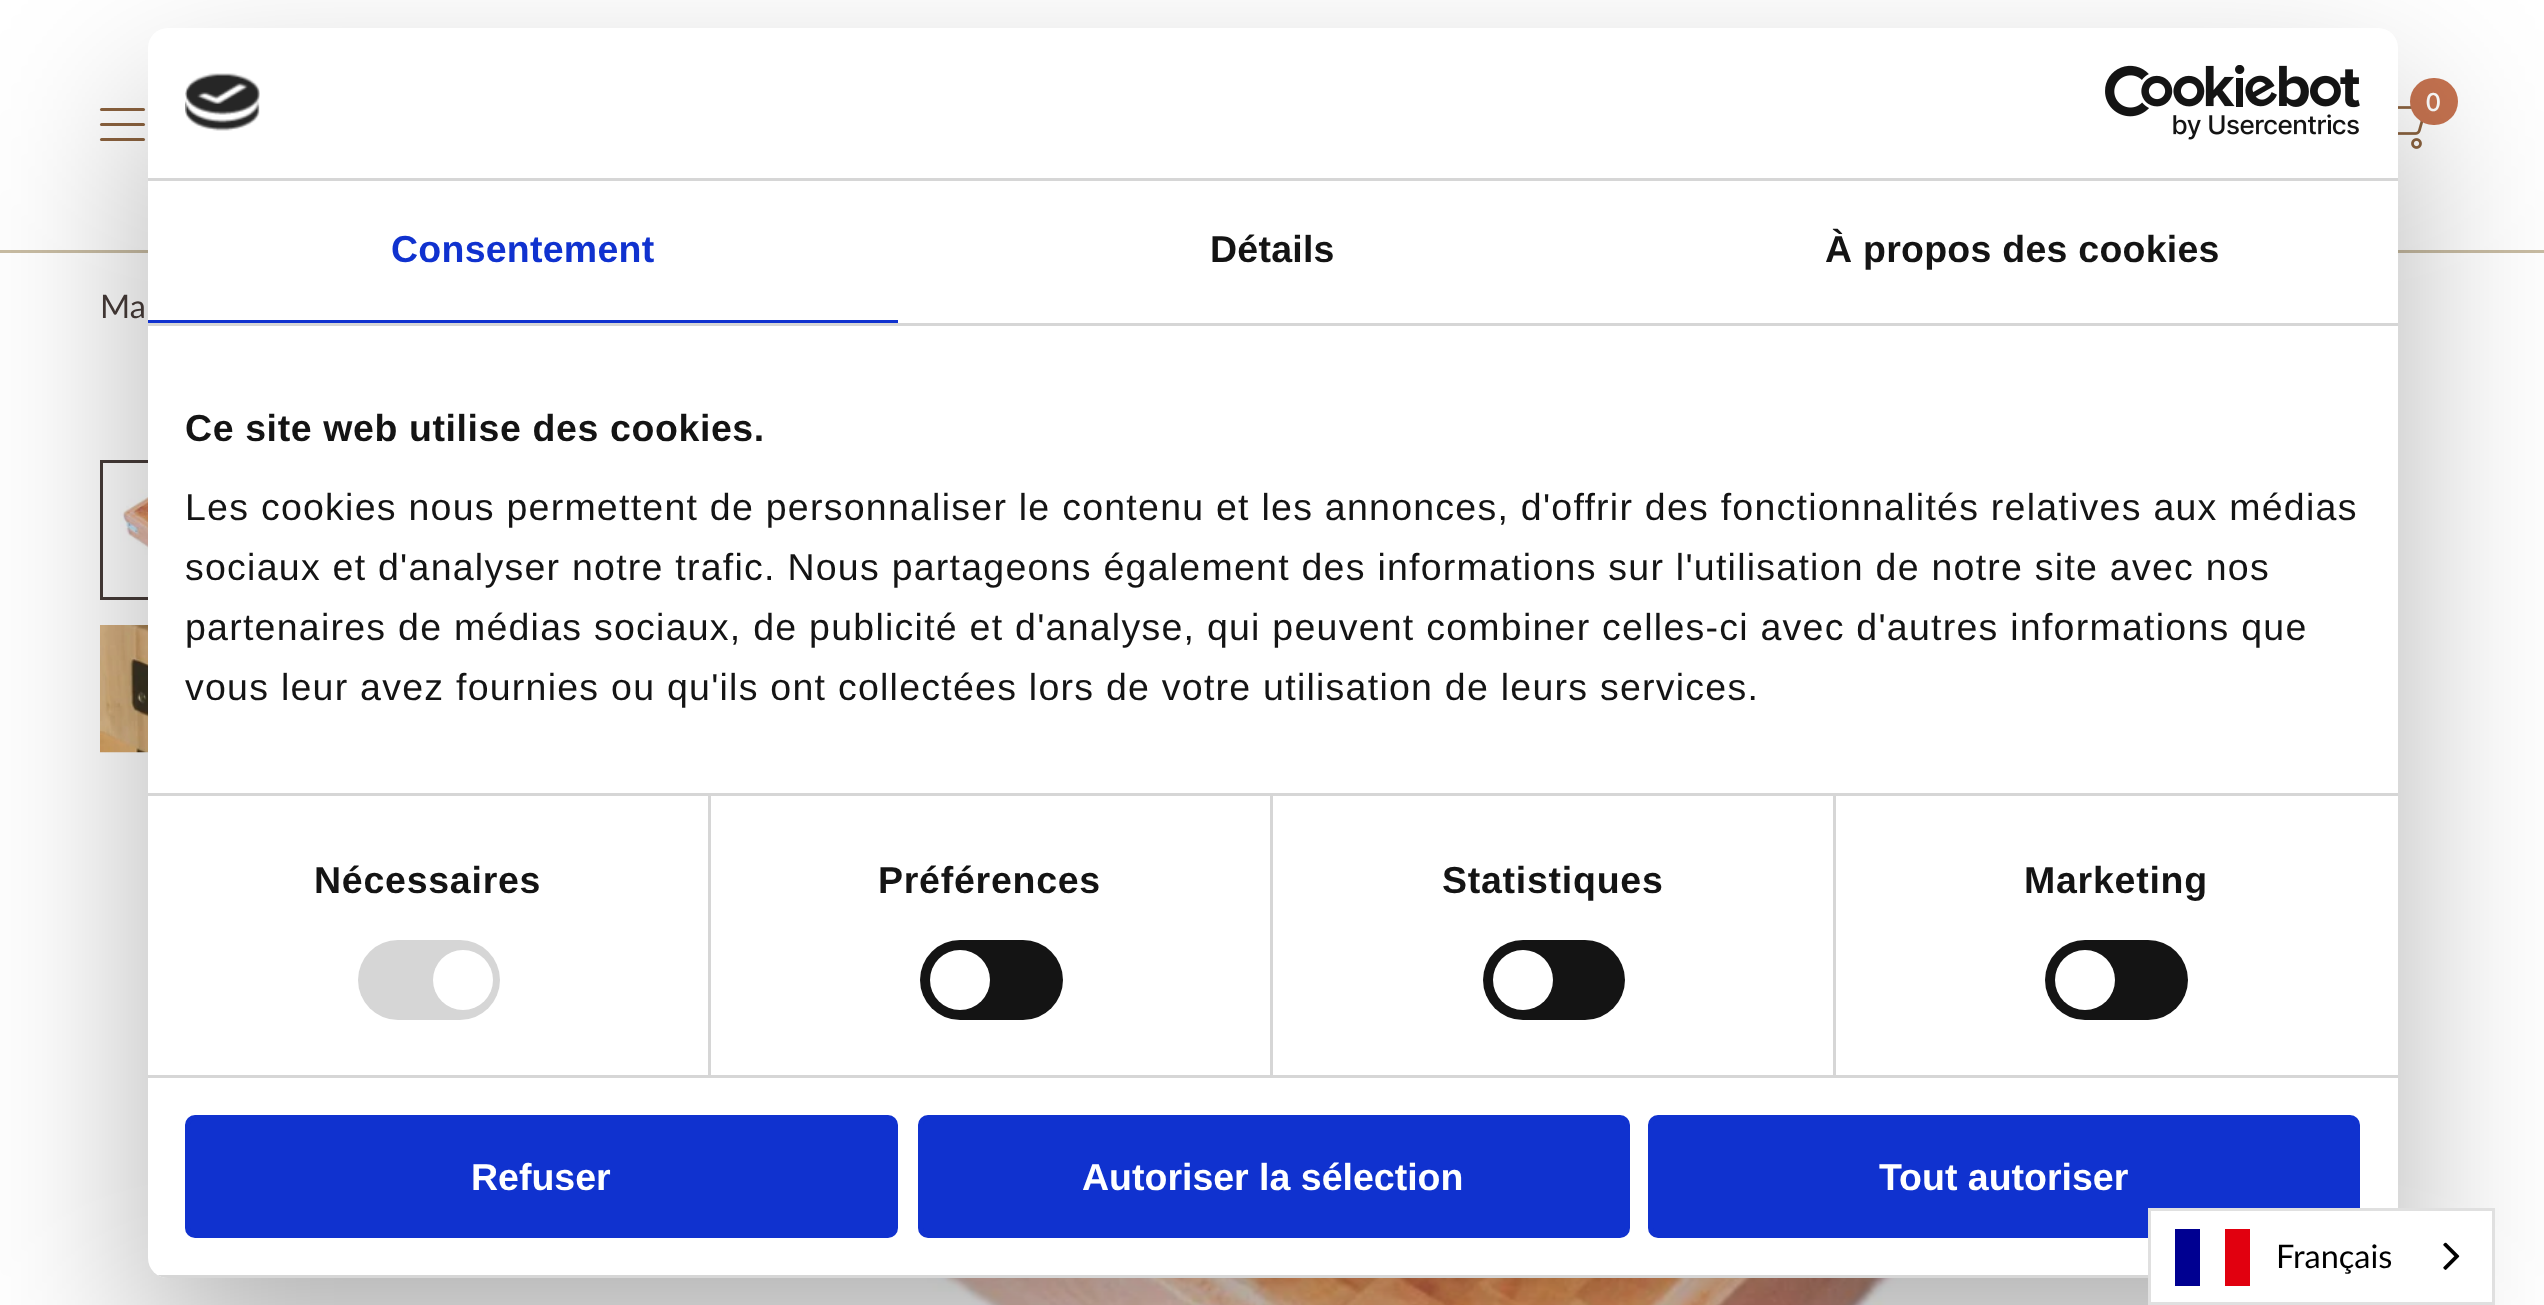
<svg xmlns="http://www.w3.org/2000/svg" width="2544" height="1305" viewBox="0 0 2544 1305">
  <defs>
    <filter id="blur1" x="-50%" y="-200%" width="200%" height="500%"><feGaussianBlur stdDeviation="85"/></filter>
    <clipPath id="clip1"><rect x="148" y="28" width="2250" height="1250" rx="20"/></clipPath>
  </defs>
  <rect width="100%" height="100%" fill="#ffffff"/>
  <rect x="0" y="250" width="2544" height="3" fill="#c8bca3"/>
  <image x="2398" y="106" width="26" height="43" href="img1.png"/>
  <rect x="2410" y="78" width="48" height="47" rx="23.5" fill="#c67350"/>
  <text x="2426" y="111" font-family="Lato" font-size="25" font-weight="600" fill="#ffffff">0</text>
  <rect x="100" y="108" width="45" height="3" rx="1.5" fill="#8b623e"/>
  <rect x="100" y="123" width="45" height="3" rx="1.5" fill="#8b623e"/>
  <rect x="100" y="138" width="45" height="3" rx="1.5" fill="#8b623e"/>
  <text x="100" y="318" font-family="Lato" font-size="32.5" fill="#463b38">Ma</text>
  <image x="120" y="463" width="28" height="134" href="img2.png"/>
  <rect x="101.5" y="461.5" width="197" height="137" fill="none" stroke="#463b38" stroke-width="3"/>
  <image x="100" y="625" width="48" height="128" href="img3.png"/>
  <image x="812" y="1278" width="1285" height="27" href="img4.png"/>
  <rect x="148" y="108" width="2250" height="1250" rx="20" fill="#000000" fill-opacity="0.3" filter="url(#blur1)"/>
  <rect x="148" y="28" width="2250" height="1250" rx="20" fill="#ffffff"/>
  <rect x="148" y="178" width="2250" height="3" fill="#d6d6d6"/>
  <image x="185" y="73" width="75" height="58" href="img5.png"/>
  <image x="2105" y="65" width="255" height="75" href="img6.png"/>
  <rect x="148" y="323" width="2250" height="3" fill="#d6d6d6"/>
  <rect x="148" y="320" width="750" height="3" fill="#1032cf"/>
  <text x="391" y="262" font-family="Liberation Sans" font-size="37.5" font-weight="bold" letter-spacing="0.25" fill="#1032cf">Consentement</text>
  <text x="1210" y="262" font-family="Liberation Sans" font-size="37.5" font-weight="bold" letter-spacing="0.25" fill="#141414">Détails</text>
  <text x="1825" y="262" font-family="Liberation Sans" font-size="37.5" font-weight="bold" letter-spacing="0.25" fill="#141414">À propos des cookies</text>
  <rect x="708" y="795" width="3" height="280" fill="#d6d6d6"/>
  <rect x="1270" y="795" width="3" height="280" fill="#d6d6d6"/>
  <rect x="1833" y="795" width="3" height="280" fill="#d6d6d6"/>
  <rect x="148" y="793" width="2250" height="3" fill="#d6d6d6"/>
  <text x="185" y="441" font-family="Liberation Sans" font-size="37.5" font-weight="bold" letter-spacing="0.6" fill="#141414">Ce site web utilise des cookies.</text>
  <text x="185" y="520" font-family="Liberation Sans" font-size="37.5" letter-spacing="1.25" fill="#141414">Les cookies nous permettent de personnaliser le contenu et les annonces, d'offrir des fonctionnalités relatives aux médias</text>
  <text x="185" y="580" font-family="Liberation Sans" font-size="37.5" letter-spacing="1.25" fill="#141414">sociaux et d'analyser notre trafic. Nous partageons également des informations sur l'utilisation de notre site avec nos</text>
  <text x="185" y="640" font-family="Liberation Sans" font-size="37.5" letter-spacing="1.25" fill="#141414">partenaires de médias sociaux, de publicité et d'analyse, qui peuvent combiner celles-ci avec d'autres informations que</text>
  <text x="185" y="700" font-family="Liberation Sans" font-size="37.5" letter-spacing="1.25" fill="#141414">vous leur avez fournies ou qu'ils ont collectées lors de votre utilisation de leurs services.</text>
  <rect x="148" y="1075" width="2250" height="3" fill="#d6d6d6"/>
  <text x="314" y="893" font-family="Liberation Sans" font-size="37.5" font-weight="bold" letter-spacing="0.75" fill="#141414">Nécessaires</text>
  <rect x="358" y="940" width="142" height="80" rx="40" fill="#d6d6d6"/>
  <circle cx="463" cy="980" r="30" fill="#ffffff"/>
  <text x="878" y="893" font-family="Liberation Sans" font-size="37.5" font-weight="bold" letter-spacing="0.75" fill="#141414">Préférences</text>
  <rect x="920" y="940" width="143" height="80" rx="40" fill="#141414"/>
  <circle cx="960" cy="980" r="30" fill="#ffffff"/>
  <text x="1442" y="893" font-family="Liberation Sans" font-size="37.5" font-weight="bold" letter-spacing="0.75" fill="#141414">Statistiques</text>
  <rect x="1483" y="940" width="142" height="80" rx="40" fill="#141414"/>
  <circle cx="1523" cy="980" r="30" fill="#ffffff"/>
  <text x="2024" y="893" font-family="Liberation Sans" font-size="37.5" font-weight="bold" letter-spacing="0.75" fill="#141414">Marketing</text>
  <rect x="2045" y="940" width="143" height="80" rx="40" fill="#141414"/>
  <circle cx="2085" cy="980" r="30" fill="#ffffff"/>
  <g clip-path="url(#clip1)">
    <rect x="157" y="1275" width="1991" height="3" fill="#d6d6d6"/>
  </g>
  <rect x="187.5" y="1117.5" width="708" height="118" rx="7.5" fill="#1032cf" stroke="#1032cf" stroke-width="5"/>
  <text x="471" y="1190" font-family="Liberation Sans" font-size="37.5" font-weight="bold" fill="#ffffff">Refuser</text>
  <rect x="920.5" y="1117.5" width="707" height="118" rx="7.5" fill="#1032cf" stroke="#1032cf" stroke-width="5"/>
  <text x="1082" y="1190" font-family="Liberation Sans" font-size="37.5" font-weight="bold" fill="#ffffff">Autoriser la sélection</text>
  <rect x="1650.5" y="1117.5" width="707" height="118" rx="7.5" fill="#1032cf" stroke="#1032cf" stroke-width="5"/>
  <text x="1879" y="1190" font-family="Liberation Sans" font-size="37.5" font-weight="bold" fill="#ffffff">Tout autoriser</text>
  <rect x="2149.5" y="1209.5" width="344" height="94" fill="#ffffff" stroke="#e0e0e0" stroke-width="3"/>
  <rect x="2175" y="1229" width="25" height="57" fill="#000091"/>
  <rect x="2225" y="1229" width="25" height="57" fill="#e1000f"/>
  <text x="2276" y="1268" font-family="Lato" font-size="32.5" fill="#000000">Français</text>
  <image x="2443" y="1242" width="17" height="28" href="img7.png"/>
</svg>
